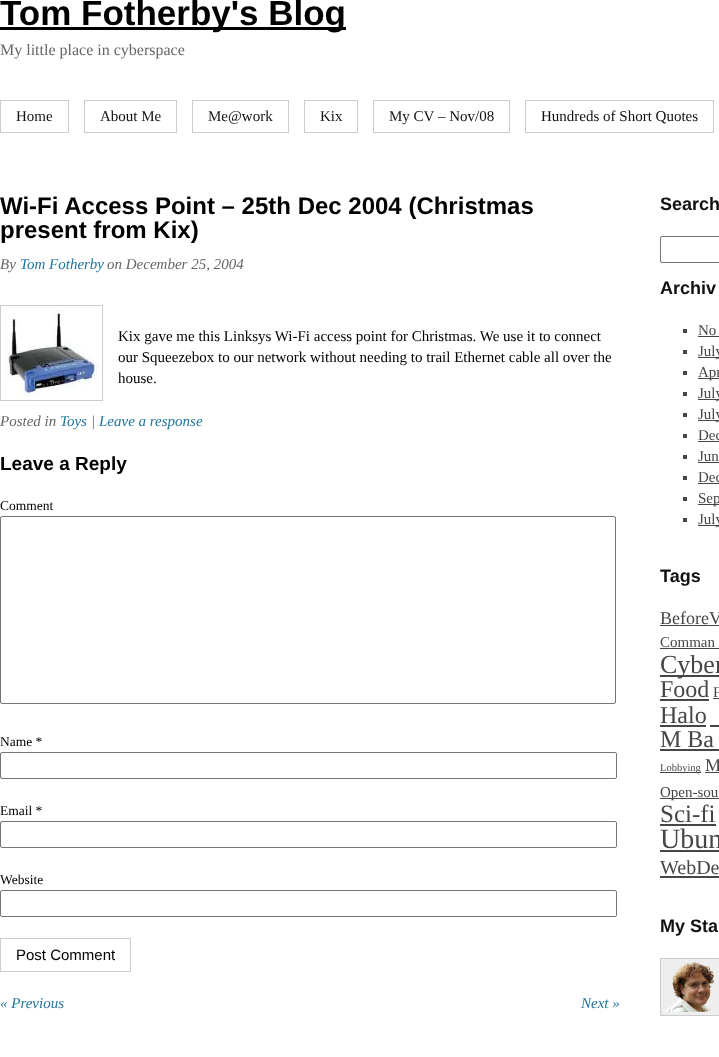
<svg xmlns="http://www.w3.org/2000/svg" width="719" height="1057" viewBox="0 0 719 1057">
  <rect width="100%" height="100%" fill="#ffffff"/>
  <rect x="0" y="27" width="346" height="3" fill="#000000"/>
  <text x="0" y="25" font-family="Liberation Sans" font-size="35" font-weight="bold" fill="#000000">Tom Fotherby's Blog</text>
  <text x="0" y="55" font-family="Liberation Serif" font-size="16" fill="#666666">My little place in cyberspace</text>
  <rect x="0.5" y="100.5" width="68" height="32" fill="none" stroke="#cccccc"/>
  <text x="16" y="121" font-family="Liberation Serif" font-size="15" fill="#111111">Home</text>
  <rect x="84.5" y="100.5" width="92" height="32" fill="none" stroke="#cccccc"/>
  <text x="100" y="121" font-family="Liberation Serif" font-size="15" fill="#111111">About Me</text>
  <rect x="192.5" y="100.5" width="96" height="32" fill="none" stroke="#cccccc"/>
  <text x="208" y="121" font-family="Liberation Serif" font-size="15" fill="#111111">Me@work</text>
  <rect x="304.5" y="100.5" width="53" height="32" fill="none" stroke="#cccccc"/>
  <text x="320" y="121" font-family="Liberation Serif" font-size="15" fill="#111111">Kix</text>
  <rect x="373.5" y="100.5" width="136" height="32" fill="none" stroke="#cccccc"/>
  <text x="389" y="121" font-family="Liberation Serif" font-size="15" fill="#111111">My CV – Nov/08</text>
  <rect x="525.5" y="100.5" width="188" height="32" fill="none" stroke="#cccccc"/>
  <text x="541" y="121" font-family="Liberation Serif" font-size="15" fill="#111111">Hundreds of Short Quotes</text>
  <text x="0" y="214" font-family="Liberation Sans" font-size="24" font-weight="bold" fill="#000000">Wi-Fi Access Point – 25th Dec 2004 (Christmas</text>
  <text x="0" y="238" font-family="Liberation Sans" font-size="24" font-weight="bold" fill="#000000">present from Kix)</text>
  <text x="0" y="269" font-family="Liberation Serif" font-size="15" font-style="italic" fill="#666666">By</text>
  <text x="20" y="269" font-family="Liberation Serif" font-size="15" font-style="italic" fill="#21759b">Tom Fotherby</text>
  <text x="107" y="269" font-family="Liberation Serif" font-size="15" font-style="italic" fill="#666666">on December 25, 2004</text>
  <rect x="0.5" y="305.5" width="102" height="95" fill="none" stroke="#cccccc"/>
  <image x="5" y="310" width="93" height="86" href="img1.png"/>
  <text x="118" y="341" font-family="Liberation Serif" font-size="15" fill="#000000">Kix gave me this Linksys Wi-Fi access point for Christmas. We use it to connect</text>
  <text x="118" y="362" font-family="Liberation Serif" font-size="15" fill="#000000">our Squeezebox to our network without needing to trail Ethernet cable all over the</text>
  <text x="118" y="383" font-family="Liberation Serif" font-size="15" fill="#000000">house.</text>
  <text x="0" y="426" font-family="Liberation Serif" font-size="15" font-style="italic" fill="#666666">Posted in</text>
  <text x="60" y="426" font-family="Liberation Serif" font-size="15" font-style="italic" fill="#21759b">Toys</text>
  <text x="91" y="426" font-family="Liberation Serif" font-size="15" font-style="italic" fill="#666666">|</text>
  <text x="99" y="426" font-family="Liberation Serif" font-size="15" font-style="italic" fill="#21759b">Leave a response</text>
  <text x="0" y="470" font-family="Liberation Sans" font-size="19" font-weight="bold" fill="#000000">Leave a Reply</text>
  <text x="0" y="510" font-family="Liberation Serif" font-size="13.5" fill="#000000">Comment</text>
  <rect x="0.5" y="516.5" width="615" height="187" rx="1.5" fill="none" stroke="#767676"/>
  <text x="0" y="746" font-family="Liberation Serif" font-size="13.5" fill="#000000">Name *</text>
  <rect x="0.5" y="752.5" width="616" height="26" rx="1.5" fill="none" stroke="#767676"/>
  <text x="0" y="815" font-family="Liberation Serif" font-size="13.5" fill="#000000">Email *</text>
  <rect x="0.5" y="821.5" width="616" height="26" rx="1.5" fill="none" stroke="#767676"/>
  <text x="0" y="884" font-family="Liberation Serif" font-size="13.5" fill="#000000">Website</text>
  <rect x="0.5" y="890.5" width="616" height="26" rx="1.5" fill="none" stroke="#767676"/>
  <rect x="0.5" y="938.5" width="130" height="33" fill="none" stroke="#cccccc"/>
  <text x="16" y="960" font-family="Liberation Sans" font-size="15" fill="#000000">Post Comment</text>
  <text x="0" y="1008" font-family="Liberation Serif" font-size="15" font-style="italic" fill="#21759b">« Previous</text>
  <text x="581" y="1008" font-family="Liberation Serif" font-size="15" font-style="italic" fill="#21759b">Next »</text>
  <text x="660" y="210" font-family="Liberation Sans" font-size="18" font-weight="bold" fill="#111111">Search</text>
  <rect x="660.5" y="236.5" width="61" height="26" rx="1.5" fill="none" stroke="#767676"/>
  <text x="660" y="294" font-family="Liberation Sans" font-size="18" font-weight="bold" fill="#111111">Archiv</text>
  <rect x="683" y="329" width="4" height="4" fill="#464646"/>
  <text x="698" y="335" font-family="Liberation Serif" font-size="15" fill="#464646">No</text>
  <rect x="698" y="336" width="21" height="1" fill="#464646"/>
  <rect x="683" y="350" width="4" height="4" fill="#464646"/>
  <rect x="698" y="357" width="21" height="1" fill="#464646"/>
  <text x="698" y="356" font-family="Liberation Serif" font-size="15" fill="#464646">July</text>
  <rect x="683" y="371" width="4" height="4" fill="#464646"/>
  <rect x="698" y="378" width="21" height="1" fill="#464646"/>
  <text x="698" y="377" font-family="Liberation Serif" font-size="15" fill="#464646">Apr</text>
  <rect x="683" y="392" width="4" height="4" fill="#464646"/>
  <rect x="698" y="399" width="21" height="1" fill="#464646"/>
  <text x="698" y="398" font-family="Liberation Serif" font-size="15" fill="#464646">July</text>
  <rect x="683" y="413" width="4" height="4" fill="#464646"/>
  <rect x="698" y="420" width="21" height="1" fill="#464646"/>
  <text x="698" y="419" font-family="Liberation Serif" font-size="15" fill="#464646">July</text>
  <rect x="683" y="434" width="4" height="4" fill="#464646"/>
  <text x="698" y="440" font-family="Liberation Serif" font-size="15" fill="#464646">Dec</text>
  <rect x="698" y="441" width="21" height="1" fill="#464646"/>
  <rect x="683" y="455" width="4" height="4" fill="#464646"/>
  <text x="698" y="461" font-family="Liberation Serif" font-size="15" fill="#464646">Jun</text>
  <rect x="698" y="462" width="21" height="1" fill="#464646"/>
  <rect x="683" y="476" width="4" height="4" fill="#464646"/>
  <text x="698" y="482" font-family="Liberation Serif" font-size="15" fill="#464646">Dec</text>
  <rect x="698" y="483" width="21" height="1" fill="#464646"/>
  <rect x="683" y="497" width="4" height="4" fill="#464646"/>
  <rect x="698" y="504" width="21" height="1" fill="#464646"/>
  <text x="698" y="503" font-family="Liberation Serif" font-size="15" fill="#464646">Sep</text>
  <rect x="683" y="518" width="4" height="4" fill="#464646"/>
  <rect x="698" y="525" width="21" height="1" fill="#464646"/>
  <text x="698" y="524" font-family="Liberation Serif" font-size="15" fill="#464646">July</text>
  <text x="660" y="582" font-family="Liberation Sans" font-size="18" font-weight="bold" fill="#111111">Tags</text>
  <text x="660" y="624" font-family="Liberation Serif" font-size="18" fill="#464646">BeforeV</text>
  <rect x="660" y="625" width="59" height="1" fill="#464646"/>
  <text x="660" y="647" font-family="Liberation Serif" font-size="15" fill="#464646">Comman</text>
  <rect x="660" y="648" width="59" height="1" fill="#464646"/>
  <rect x="660" y="675" width="59" height="2" fill="#464646"/>
  <text x="660" y="673" font-family="Liberation Serif" font-size="26" fill="#464646">Cyber</text>
  <text x="660" y="697" font-family="Liberation Serif" font-size="24" fill="#464646">Food</text>
  <rect x="660" y="699" width="49" height="2" fill="#464646"/>
  <text x="713" y="697" font-family="Liberation Serif" font-size="15" fill="#464646">F</text>
  <rect x="713" y="698" width="6" height="1" fill="#464646"/>
  <text x="660" y="723" font-family="Liberation Serif" font-size="24" fill="#464646">Halo</text>
  <rect x="660" y="725" width="46" height="2" fill="#464646"/>
  <rect x="710" y="725" width="9" height="2" fill="#464646"/>
  <text x="660" y="747" font-family="Liberation Serif" font-size="24" fill="#464646">M Ba</text>
  <rect x="660" y="749" width="59" height="2" fill="#464646"/>
  <rect x="660" y="772" width="41" height="1" fill="#464646"/>
  <text x="660" y="771" font-family="Liberation Serif" font-size="10.5" fill="#464646">Lobbying</text>
  <text x="705" y="771" font-family="Liberation Serif" font-size="18" fill="#464646">M</text>
  <rect x="705" y="772" width="14" height="1" fill="#464646"/>
  <rect x="660" y="798" width="59" height="1" fill="#464646"/>
  <text x="660" y="797" font-family="Liberation Serif" font-size="15" fill="#464646">Open-sou</text>
  <text x="660" y="822" font-family="Liberation Serif" font-size="25" fill="#464646">Sci-fi</text>
  <rect x="660" y="824" width="56" height="2" fill="#464646"/>
  <text x="660" y="848" font-family="Liberation Serif" font-size="28" fill="#464646">Ubun</text>
  <rect x="660" y="850" width="59" height="2" fill="#464646"/>
  <text x="660" y="874" font-family="Liberation Serif" font-size="20" fill="#464646">WebDe</text>
  <rect x="660" y="876" width="59" height="2" fill="#464646"/>
  <text x="660" y="932" font-family="Liberation Sans" font-size="18" font-weight="bold" fill="#111111">My Sta</text>
  <image x="660" y="958" width="59" height="58" href="img2.png"/>
</svg>
